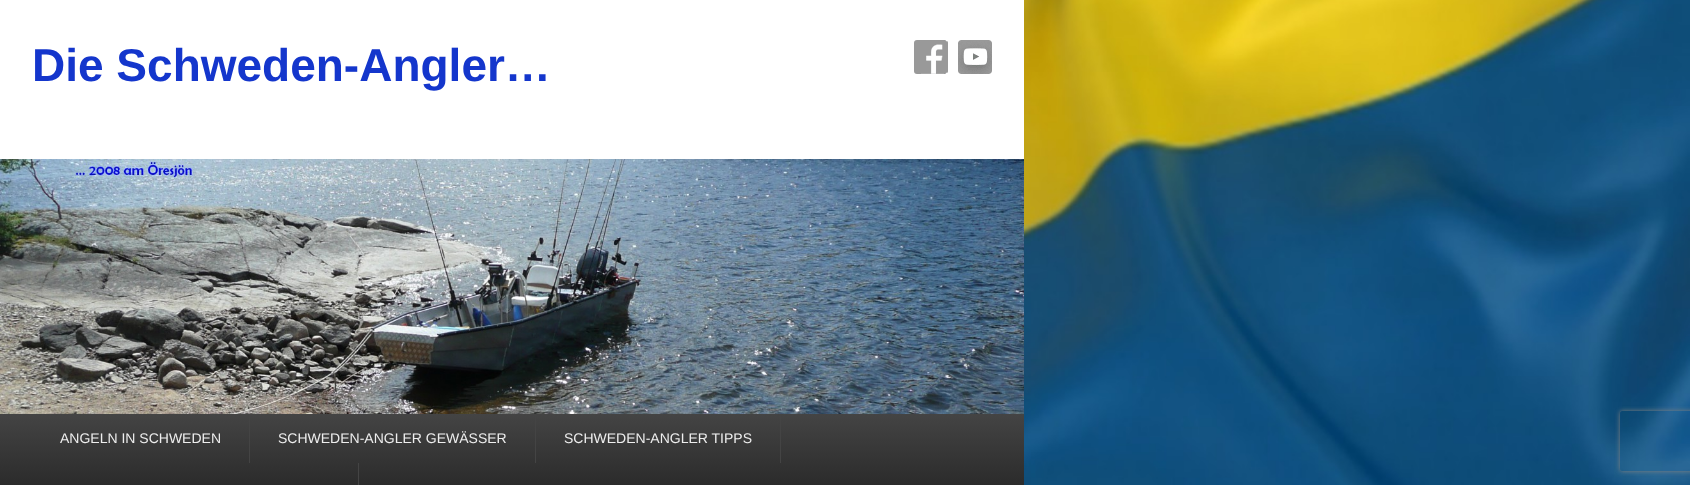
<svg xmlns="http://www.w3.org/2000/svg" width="1690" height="485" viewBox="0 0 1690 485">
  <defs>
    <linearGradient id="g1" gradientUnits="userSpaceOnUse" x1="512" y1="414" x2="512" y2="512"><stop offset="0" stop-color="#444444"/><stop offset="1" stop-color="#222222"/></linearGradient>
    <clipPath id="clip1"><path d="M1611 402H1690V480H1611ZM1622 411H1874C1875 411 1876 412 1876 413V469C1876 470 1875 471 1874 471H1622C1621 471 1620 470 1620 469V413C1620 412 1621 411 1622 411Z" clip-rule="evenodd"/></clipPath>
    <filter id="blur1" x="-50%" y="-200%" width="200%" height="500%"><feGaussianBlur stdDeviation="2.5"/></filter>
  </defs>
  <rect width="100%" height="100%" fill="#ffffff"/>
  <image x="1024" y="0" width="666" height="485" href="img1.png"/>
  <text x="32" y="81" font-family="Liberation Sans" font-size="46" font-weight="bold" fill="#1436cc">Die Schweden-Angler…</text>
  <image x="914" y="40" width="34" height="34" href="img2.png"/>
  <image x="958" y="40" width="34" height="34" href="img3.png"/>
  <image x="0" y="159" width="1024" height="255" href="img4.png"/>
  <rect x="0" y="414" width="1024" height="71" fill="url(#g1)"/>
  <rect x="249" y="414" width="1" height="49" fill="#444444"/>
  <text x="60" y="443" font-family="Liberation Sans" font-size="14" fill="#eeeeee">ANGELN IN SCHWEDEN</text>
  <rect x="535" y="414" width="1" height="49" fill="#444444"/>
  <text x="278" y="443" font-family="Liberation Sans" font-size="14" fill="#eeeeee">SCHWEDEN-ANGLER GEWÄSSER</text>
  <rect x="780" y="414" width="1" height="49" fill="#444444"/>
  <text x="564" y="443" font-family="Liberation Sans" font-size="14" fill="#eeeeee">SCHWEDEN-ANGLER TIPPS</text>
  <rect x="358" y="463" width="1" height="22" fill="#444444"/>
  <g clip-path="url(#clip1)">
    <rect x="1620" y="411" width="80" height="60" rx="2" fill="#808080" filter="url(#blur1)"/>
  </g>
</svg>
